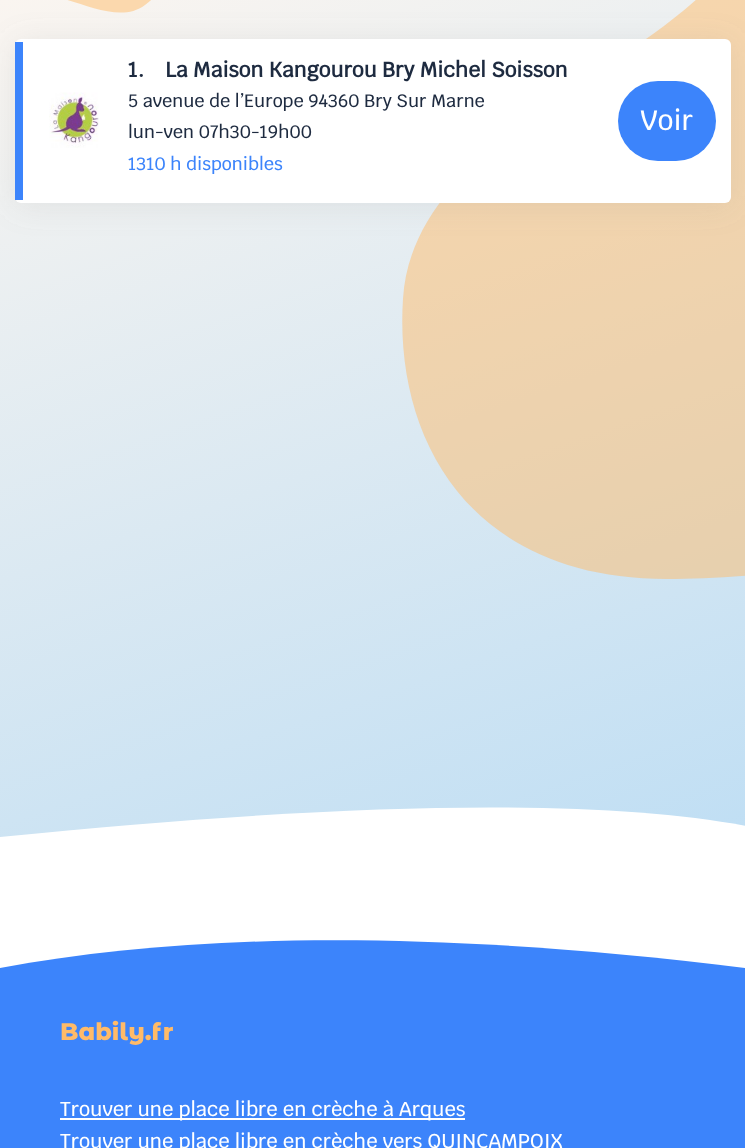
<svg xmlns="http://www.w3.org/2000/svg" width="745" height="1148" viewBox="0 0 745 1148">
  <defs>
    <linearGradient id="g1" gradientUnits="userSpaceOnUse" x1="156" y1="-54" x2="589" y2="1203"><stop offset="0" stop-color="#faf5f0"/><stop offset="1" stop-color="#afd8f5"/></linearGradient>
    <filter id="blur1" x="-50%" y="-200%" width="200%" height="500%"><feGaussianBlur stdDeviation="15"/></filter>
    <clipPath id="clip1"><rect x="0" y="785" width="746" height="52"/></clipPath>
  </defs>
  <rect width="100%" height="100%" fill="#ffffff"/>
  <rect x="0" y="0" width="745" height="837" fill="url(#g1)"/>
  <path d="M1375 268C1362 495 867 579 667 579C468 579 394 437 403 299C411 162 585 92 683 11C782-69 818-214 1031-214C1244-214 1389 41 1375 268Z" fill="#ffbb69" fill-opacity="0.5"/>
  <path d="M-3-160C40-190 126-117 155-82C185-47 171-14 145 5C120 24 83 2 55-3C26-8-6 8-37-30C-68-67-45-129-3-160Z" fill="#fbd8ad"/>
  <rect x="15" y="42" width="716" height="164" rx="6" fill="#8c8c8c" fill-opacity="0.15" filter="url(#blur1)"/>
  <rect x="15" y="39" width="716" height="164" rx="6" fill="#ffffff"/>
  <rect x="15" y="42" width="8" height="158" fill="#3c84fb"/>
  <image x="49" y="92" width="50" height="56" href="img1.png"/>
  <text x="128" y="77" font-family="Krub" font-size="21" font-weight="bold" fill="#1e2b40">1. La Maison Kangourou Bry Michel Soisson</text>
  <text x="128" y="107" font-family="Krub" font-size="18" font-weight="500" fill="#1e2b40">5 avenue de l’Europe 94360 Bry Sur Marne</text>
  <text x="128" y="138" font-family="Krub" font-size="18" font-weight="500" fill="#1e2b40">lun-ven 07h30-19h00</text>
  <text x="128" y="170" font-family="Krub" font-size="18" font-weight="500" fill="#3c84fb">1310 h disponibles</text>
  <rect x="618" y="81" width="98" height="80" rx="40" fill="#3c84fb"/>
  <text x="640" y="130" font-family="Krub" font-size="28" font-weight="500" fill="#ffffff">Voir</text>
  <g clip-path="url(#clip1)">
    <path d="M0 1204V837C348 802 596 798 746 826V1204Z" fill="#ffffff"/>
  </g>
  <path d="M0 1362V968C199 931 447 931 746 968V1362Z" fill="#3c84fb"/>
  <text x="60" y="1040" font-family="Montserrat Alternates" font-size="24" font-weight="800" fill="#ffbb69">Babily.fr</text>
  <rect x="60" y="1118" width="405" height="2" fill="#ffffff"/>
  <text x="60" y="1116" font-family="Krub" font-size="20" font-weight="500" fill="#ffffff">Trouver une place libre en crèche à Arques</text>
  <text x="60" y="1148" font-family="Krub" font-size="20" font-weight="500" fill="#ffffff">Trouver une place libre en crèche vers QUINCAMPOIX</text>
</svg>
